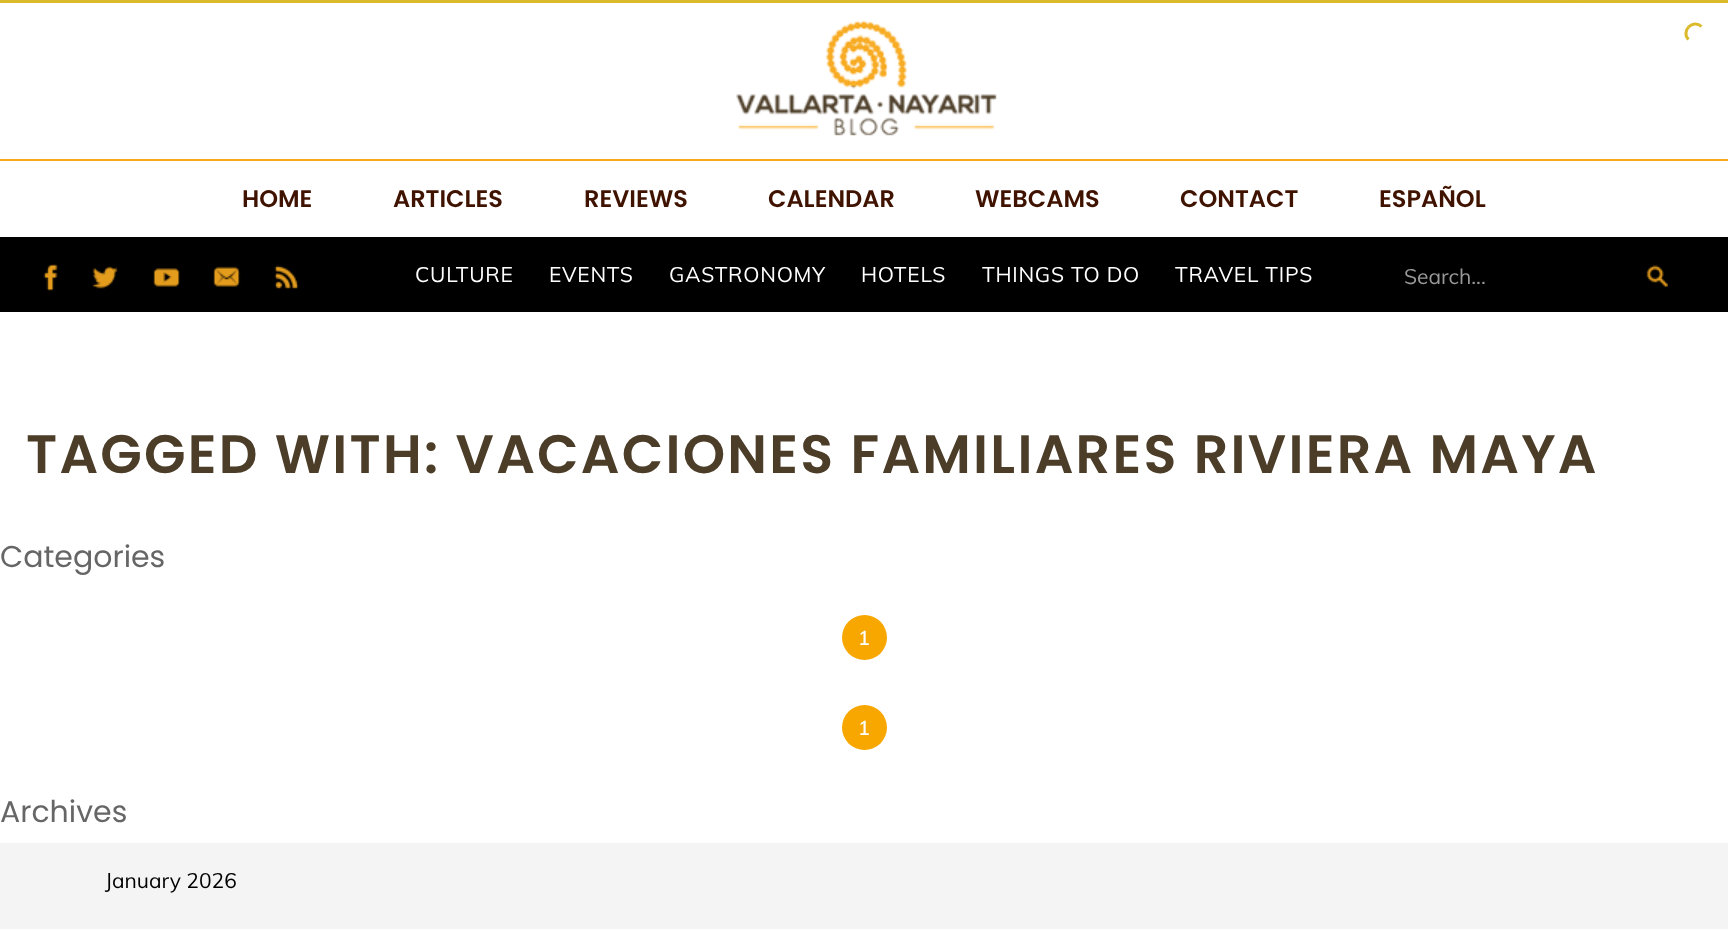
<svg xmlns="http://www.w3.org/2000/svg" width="1728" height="929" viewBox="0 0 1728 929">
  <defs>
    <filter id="blur1" x="-50%" y="-200%" width="200%" height="500%"><feGaussianBlur stdDeviation="7.5"/></filter>
  </defs>
  <rect width="100%" height="100%" fill="#ffffff"/>
  <rect x="0" y="0" width="1728" height="3" fill="#dbba2b"/>
  <rect x="1578" y="-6" width="150" height="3" fill="#dbba2b" filter="url(#blur1)"/>
  <path d="M1688.5 39.5C1680.5 31 1693 18.5 1701.5 26.5" fill="none" stroke="#dbba2b" stroke-width="3"/>
  <image x="736" y="20" width="261" height="116" href="img1.png"/>
  <rect x="0" y="159" width="1728" height="2" fill="#f8a81b"/>
  <text x="242" y="207" font-family="Poppins" font-size="24" font-weight="600" fill="#3f1300">HOME</text>
  <text x="393" y="207" font-family="Poppins" font-size="24" font-weight="600" fill="#3f1300">ARTICLES</text>
  <text x="584" y="207" font-family="Poppins" font-size="24" font-weight="600" fill="#3f1300">REVIEWS</text>
  <text x="768" y="207" font-family="Poppins" font-size="24" font-weight="600" fill="#3f1300">CALENDAR</text>
  <text x="975" y="207" font-family="Poppins" font-size="24" font-weight="600" fill="#3f1300">WEBCAMS</text>
  <text x="1180" y="207" font-family="Poppins" font-size="24" font-weight="600" fill="#3f1300">CONTACT</text>
  <text x="1379" y="207" font-family="Poppins" font-size="24" font-weight="600" fill="#3f1300">ESPAÑOL</text>
  <rect x="0" y="237" width="1728" height="75" fill="#000000"/>
  <image x="43" y="264" width="15" height="28" href="img2.png"/>
  <image x="92" y="266" width="26" height="23" href="img3.png"/>
  <image x="153" y="268" width="28" height="19" href="img4.png"/>
  <image x="213" y="266" width="28" height="21" href="img5.png"/>
  <image x="274" y="265" width="25" height="24" href="img6.png"/>
  <text x="415" y="282" font-family="Muli" font-size="21" letter-spacing="0.75" fill="#ffffff">CULTURE</text>
  <text x="549" y="282" font-family="Muli" font-size="21" letter-spacing="0.75" fill="#ffffff">EVENTS</text>
  <text x="669" y="282" font-family="Muli" font-size="21" letter-spacing="0.75" fill="#ffffff">GASTRONOMY</text>
  <text x="861" y="282" font-family="Muli" font-size="21" letter-spacing="0.75" fill="#ffffff">HOTELS</text>
  <text x="982" y="282" font-family="Muli" font-size="21" letter-spacing="0.75" fill="#ffffff">THINGS TO DO</text>
  <text x="1175" y="282" font-family="Muli" font-size="21" letter-spacing="0.75" fill="#ffffff">TRAVEL TIPS</text>
  <text x="1404" y="284" font-family="Muli" font-size="21" fill="#999999">Search...</text>
  <image x="1646" y="265" width="22" height="23" href="img7.png"/>
  <text x="26" y="473" font-family="Poppins" font-size="54" font-weight="600" letter-spacing="2.25" fill="#4c3d29">TAGGED WITH: VACACIONES FAMILIARES RIVIERA MAYA</text>
  <text x="0" y="567" font-family="Poppins" font-size="30" fill="#666666">Categories</text>
  <circle cx="864.5" cy="637.5" r="22.5" fill="#f7a700"/>
  <text x="858" y="645" font-family="Muli" font-size="20" font-weight="600" fill="#ffffff">1</text>
  <circle cx="864.5" cy="727.5" r="22.5" fill="#f7a700"/>
  <text x="858" y="735" font-family="Muli" font-size="20" font-weight="600" fill="#ffffff">1</text>
  <text x="0" y="822" font-family="Poppins" font-size="30" fill="#666666">Archives</text>
  <rect x="0" y="843" width="1728" height="86" fill="#f4f4f4"/>
  <text x="105" y="888" font-family="Muli" font-size="21" fill="#000000">January 2026</text>
</svg>
